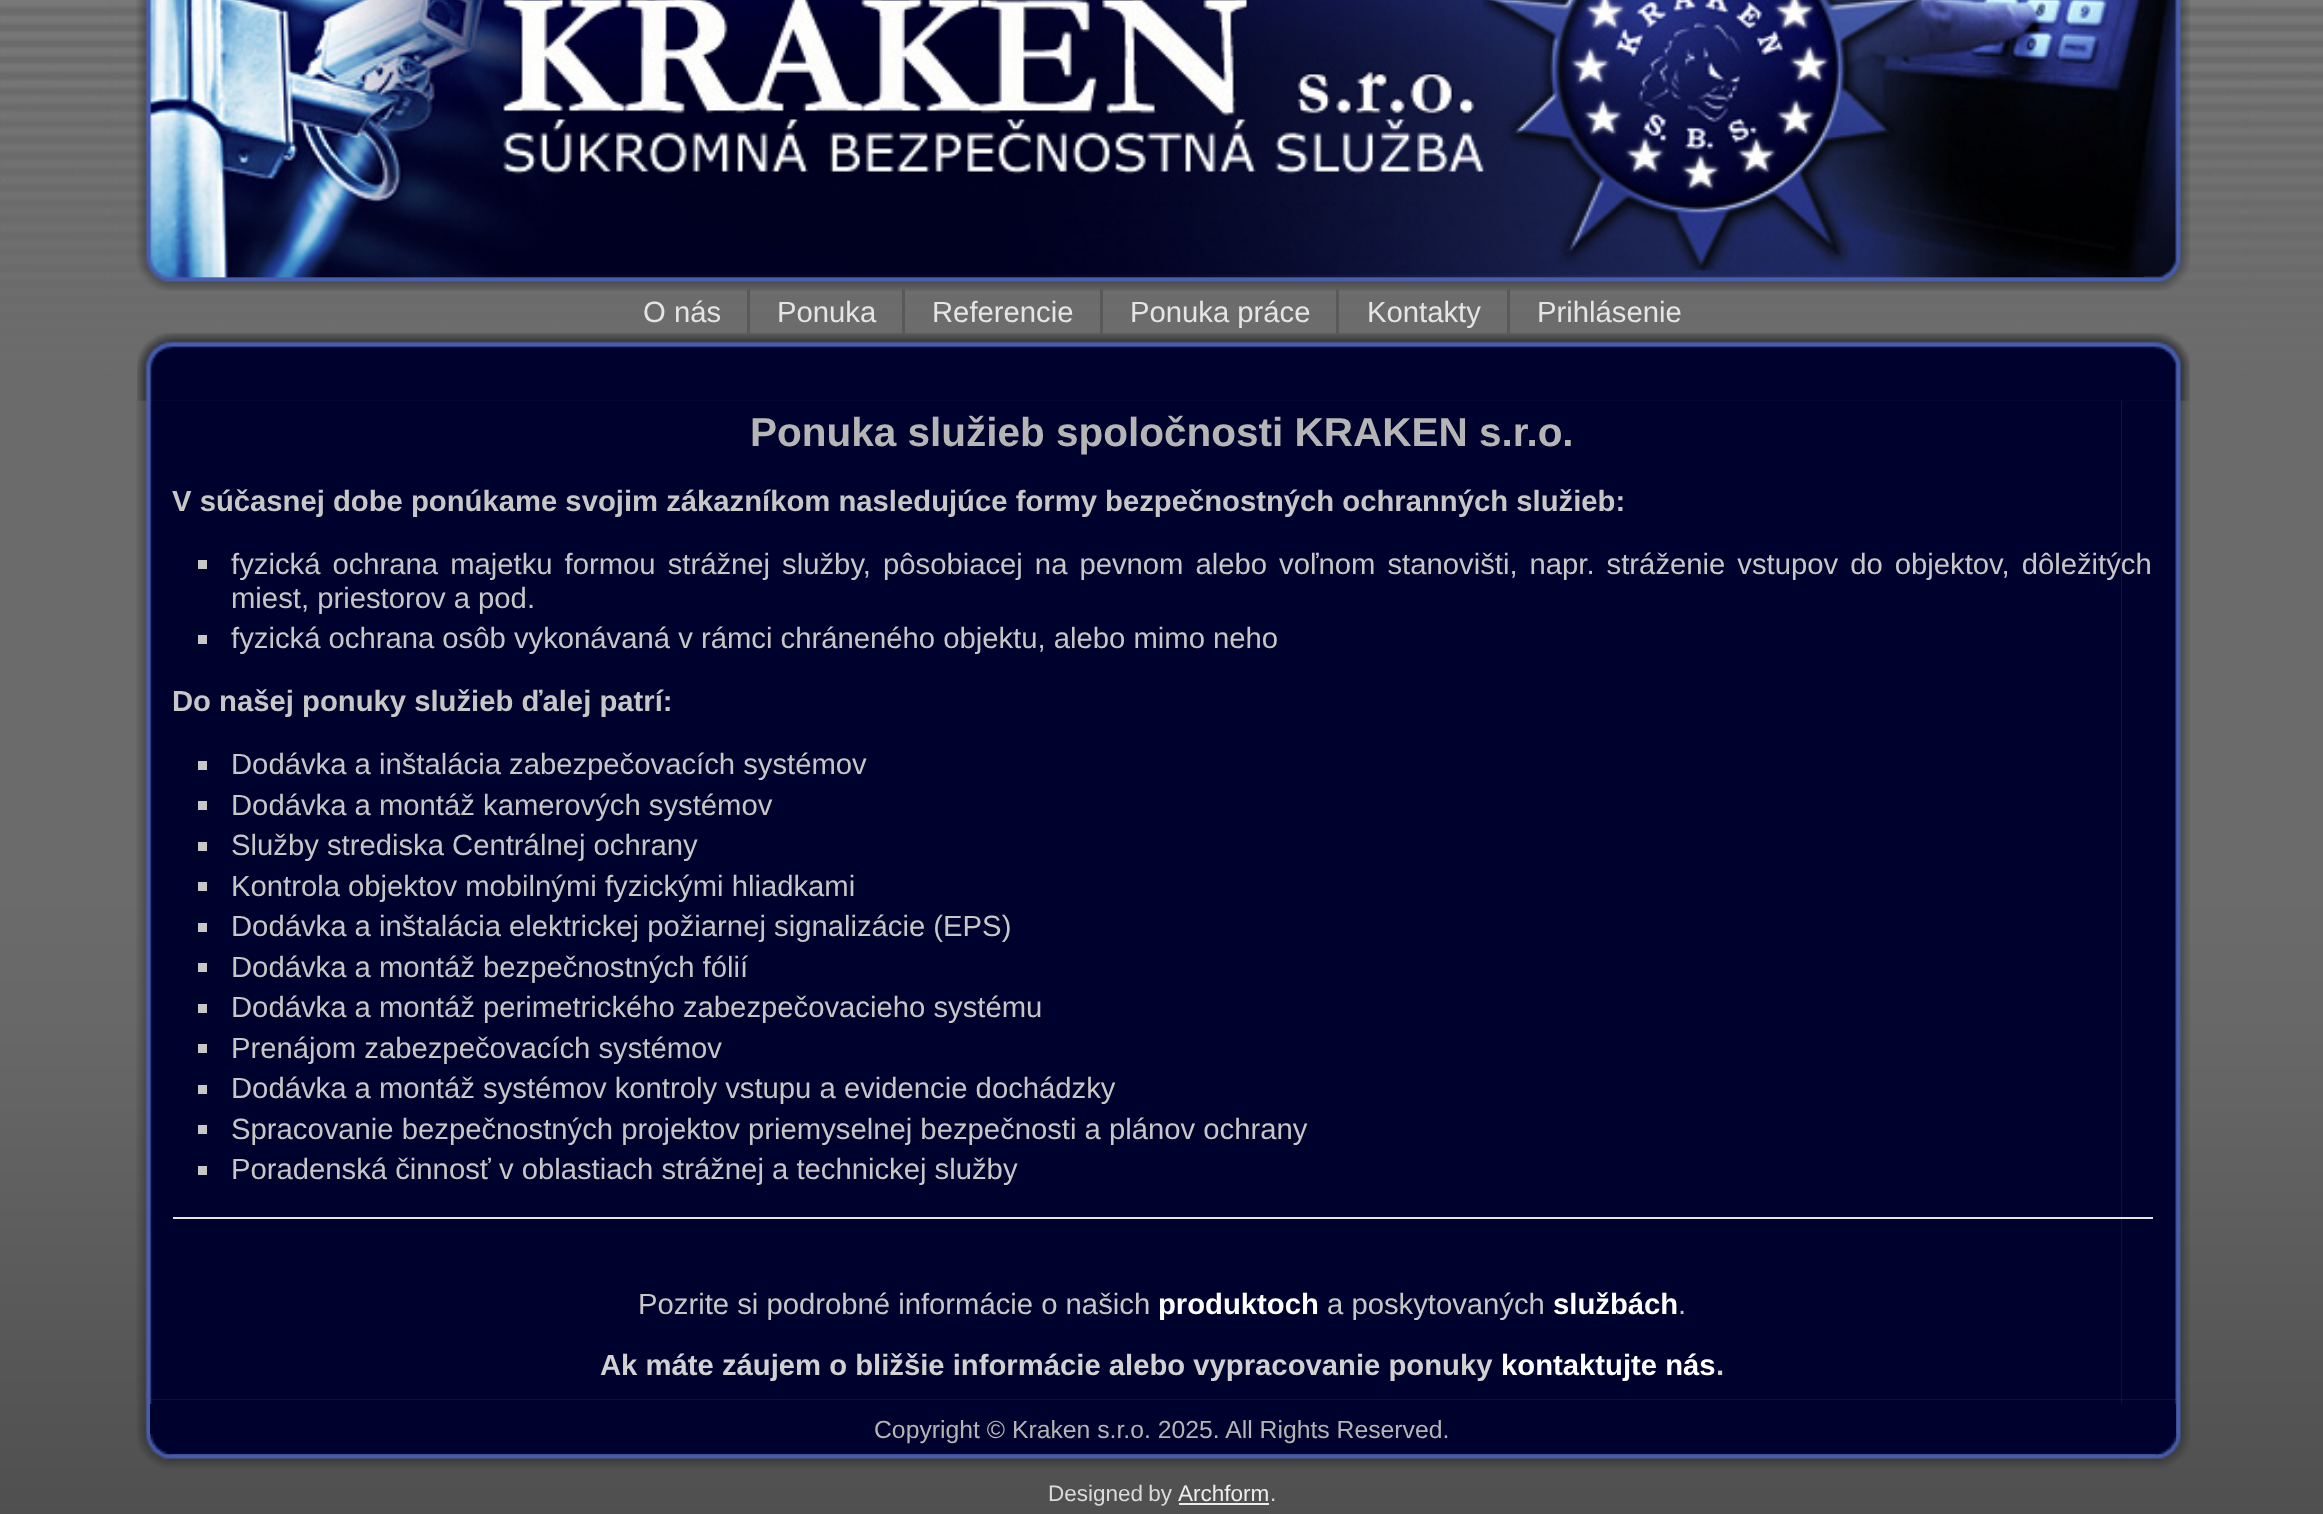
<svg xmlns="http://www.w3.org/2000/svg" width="2323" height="1514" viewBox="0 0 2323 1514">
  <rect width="100%" height="100%" fill="#ffffff"/>
  <image x="0" y="0" width="2323" height="1514" href="img1.png"/>
  <image x="136" y="0" width="2054" height="291" href="img2.png"/>
  <image x="182" y="0" width="1963" height="277" href="img3.png"/>
  <text x="643" y="322" font-family="Liberation Sans" font-size="29.25" fill="#e5e5e5">O nás</text>
  <image x="137" y="333" width="1985" height="1135" href="img4.png"/>
  <image x="137" y="333" width="1985" height="68" href="img5.png"/>
  <rect x="747" y="289" width="3" height="45" fill="#595959"/>
  <text x="777" y="322" font-family="Liberation Sans" font-size="29.25" fill="#e5e5e5">Ponuka</text>
  <rect x="902" y="289" width="3" height="45" fill="#595959"/>
  <text x="932" y="322" font-family="Liberation Sans" font-size="29.25" fill="#e5e5e5">Referencie</text>
  <rect x="1100" y="289" width="3" height="45" fill="#595959"/>
  <text x="1130" y="322" font-family="Liberation Sans" font-size="29.25" fill="#e5e5e5">Ponuka práce</text>
  <rect x="1336" y="289" width="3" height="45" fill="#595959"/>
  <text x="1367" y="322" font-family="Liberation Sans" font-size="29.25" fill="#e5e5e5">Kontakty</text>
  <rect x="1507" y="289" width="3" height="45" fill="#595959"/>
  <text x="1537" y="322" font-family="Liberation Sans" font-size="29.25" fill="#e5e5e5">Prihlásenie</text>
  <image x="136" y="400" width="1986" height="1000" href="img8.png"/>
  <image x="2121" y="400" width="69" height="1000" href="img9.png"/>
  <image x="2121" y="333" width="69" height="1135" href="img6.png"/>
  <image x="2121" y="333" width="69" height="68" href="img7.png"/>
  <text x="750" y="446" font-family="Liberation Sans" font-size="40.5" font-weight="bold" fill="#b5b5b5">Ponuka služieb spoločnosti KRAKEN s.r.o.</text>
  <text x="172" y="511" font-family="Liberation Sans" font-size="29.25" font-weight="bold" fill="#c7c7c7">V súčasnej dobe ponúkame svojim zákazníkom nasledujúce formy bezpečnostných ochranných služieb:</text>
  <rect x="198" y="560" width="9" height="9" fill="#c7c7c7"/>
  <text x="231" y="574" word-spacing="3.9" font-family="Liberation Sans" font-size="29.25" fill="#c7c7c7">fyzická ochrana majetku formou strážnej služby, pôsobiacej na pevnom alebo voľnom stanovišti, napr. stráženie vstupov do objektov, dôležitých</text>
  <text x="231" y="608" font-family="Liberation Sans" font-size="29.25" fill="#c7c7c7">miest, priestorov a pod.</text>
  <rect x="198" y="635" width="9" height="9" fill="#c7c7c7"/>
  <text x="231" y="648" font-family="Liberation Sans" font-size="29.25" fill="#c7c7c7">fyzická ochrana osôb vykonávaná v rámci chráneného objektu, alebo mimo neho</text>
  <text x="172" y="711" font-family="Liberation Sans" font-size="29.25" font-weight="bold" fill="#c7c7c7">Do našej ponuky služieb ďalej patrí:</text>
  <rect x="198" y="761" width="9" height="9" fill="#c7c7c7"/>
  <text x="231" y="774" font-family="Liberation Sans" font-size="29.25" fill="#c7c7c7">Dodávka a inštalácia zabezpečovacích systémov</text>
  <rect x="198" y="801" width="9" height="9" fill="#c7c7c7"/>
  <text x="231" y="815" font-family="Liberation Sans" font-size="29.25" fill="#c7c7c7">Dodávka a montáž kamerových systémov</text>
  <rect x="198" y="842" width="9" height="9" fill="#c7c7c7"/>
  <text x="231" y="855" font-family="Liberation Sans" font-size="29.25" fill="#c7c7c7">Služby strediska Centrálnej ochrany</text>
  <rect x="198" y="882" width="9" height="9" fill="#c7c7c7"/>
  <text x="231" y="896" font-family="Liberation Sans" font-size="29.25" fill="#c7c7c7">Kontrola objektov mobilnými fyzickými hliadkami</text>
  <rect x="198" y="923" width="9" height="9" fill="#c7c7c7"/>
  <text x="231" y="936" font-family="Liberation Sans" font-size="29.25" fill="#c7c7c7">Dodávka a inštalácia elektrickej požiarnej signalizácie (EPS)</text>
  <rect x="198" y="963" width="9" height="9" fill="#c7c7c7"/>
  <text x="231" y="977" font-family="Liberation Sans" font-size="29.25" fill="#c7c7c7">Dodávka a montáž bezpečnostných fólií</text>
  <rect x="198" y="1004" width="9" height="9" fill="#c7c7c7"/>
  <text x="231" y="1017" font-family="Liberation Sans" font-size="29.25" fill="#c7c7c7">Dodávka a montáž perimetrického zabezpečovacieho systému</text>
  <rect x="198" y="1044" width="9" height="9" fill="#c7c7c7"/>
  <text x="231" y="1058" font-family="Liberation Sans" font-size="29.25" fill="#c7c7c7">Prenájom zabezpečovacích systémov</text>
  <rect x="198" y="1085" width="9" height="9" fill="#c7c7c7"/>
  <text x="231" y="1098" font-family="Liberation Sans" font-size="29.25" fill="#c7c7c7">Dodávka a montáž systémov kontroly vstupu a evidencie dochádzky</text>
  <rect x="198" y="1125" width="9" height="9" fill="#c7c7c7"/>
  <text x="231" y="1139" font-family="Liberation Sans" font-size="29.25" fill="#c7c7c7">Spracovanie bezpečnostných projektov priemyselnej bezpečnosti a plánov ochrany</text>
  <rect x="198" y="1166" width="9" height="9" fill="#c7c7c7"/>
  <text x="231" y="1179" font-family="Liberation Sans" font-size="29.25" fill="#c7c7c7">Poradenská činnosť v oblastiach strážnej a technickej služby</text>
  <rect x="173" y="1217" width="1980" height="2" fill="#e5e5e5"/>
  <text x="638" y="1314" font-family="Liberation Sans" font-size="29.25" fill="#c7c7c7">Pozrite si podrobné informácie o našich</text>
  <text x="1158" y="1314" font-family="Liberation Sans" font-size="29.25" font-weight="bold" fill="#ffffff">produktoch</text>
  <text x="1327" y="1314" font-family="Liberation Sans" font-size="29.25" fill="#c7c7c7">a poskytovaných</text>
  <text x="1553" y="1314" font-family="Liberation Sans" font-size="29.25" font-weight="bold" fill="#ffffff">službách</text>
  <text x="1678" y="1314" font-family="Liberation Sans" font-size="29.25" fill="#c7c7c7">.</text>
  <text x="600" y="1375" font-family="Liberation Sans" font-size="29.25" font-weight="bold" fill="#d1d1d1">Ak máte záujem o bližšie informácie alebo vypracovanie ponuky</text>
  <text x="1501" y="1375" font-family="Liberation Sans" font-size="29.25" font-weight="bold" fill="#ffffff">kontaktujte nás</text>
  <text x="1716" y="1375" font-family="Liberation Sans" font-size="29.25" font-weight="bold" fill="#d1d1d1">.</text>
  <rect x="150" y="1404" width="2026" height="30" fill="#00022e"/>
  <image x="150" y="1434" width="2006" height="20" href="img10.png"/>
  <text x="874" y="1438" font-family="Liberation Sans" font-size="24.75" fill="#b5b5b5">Copyright © Kraken s.r.o. 2025. All Rights Reserved.</text>
  <image x="2155" y="1434" width="21" height="20" href="img11.png"/>
  <text x="1048" y="1501" word-spacing="-1" font-family="Liberation Sans" font-size="22.5" fill="#dbdbdb">Designed by</text>
  <text x="1178" y="1501" font-family="Liberation Sans" font-size="22.5" fill="#ededed">Archform</text>
  <rect x="1179" y="1503" width="90" height="2" fill="#ededed"/>
  <text x="1270" y="1501" font-family="Liberation Sans" font-size="22.5" fill="#dbdbdb">.</text>
</svg>
